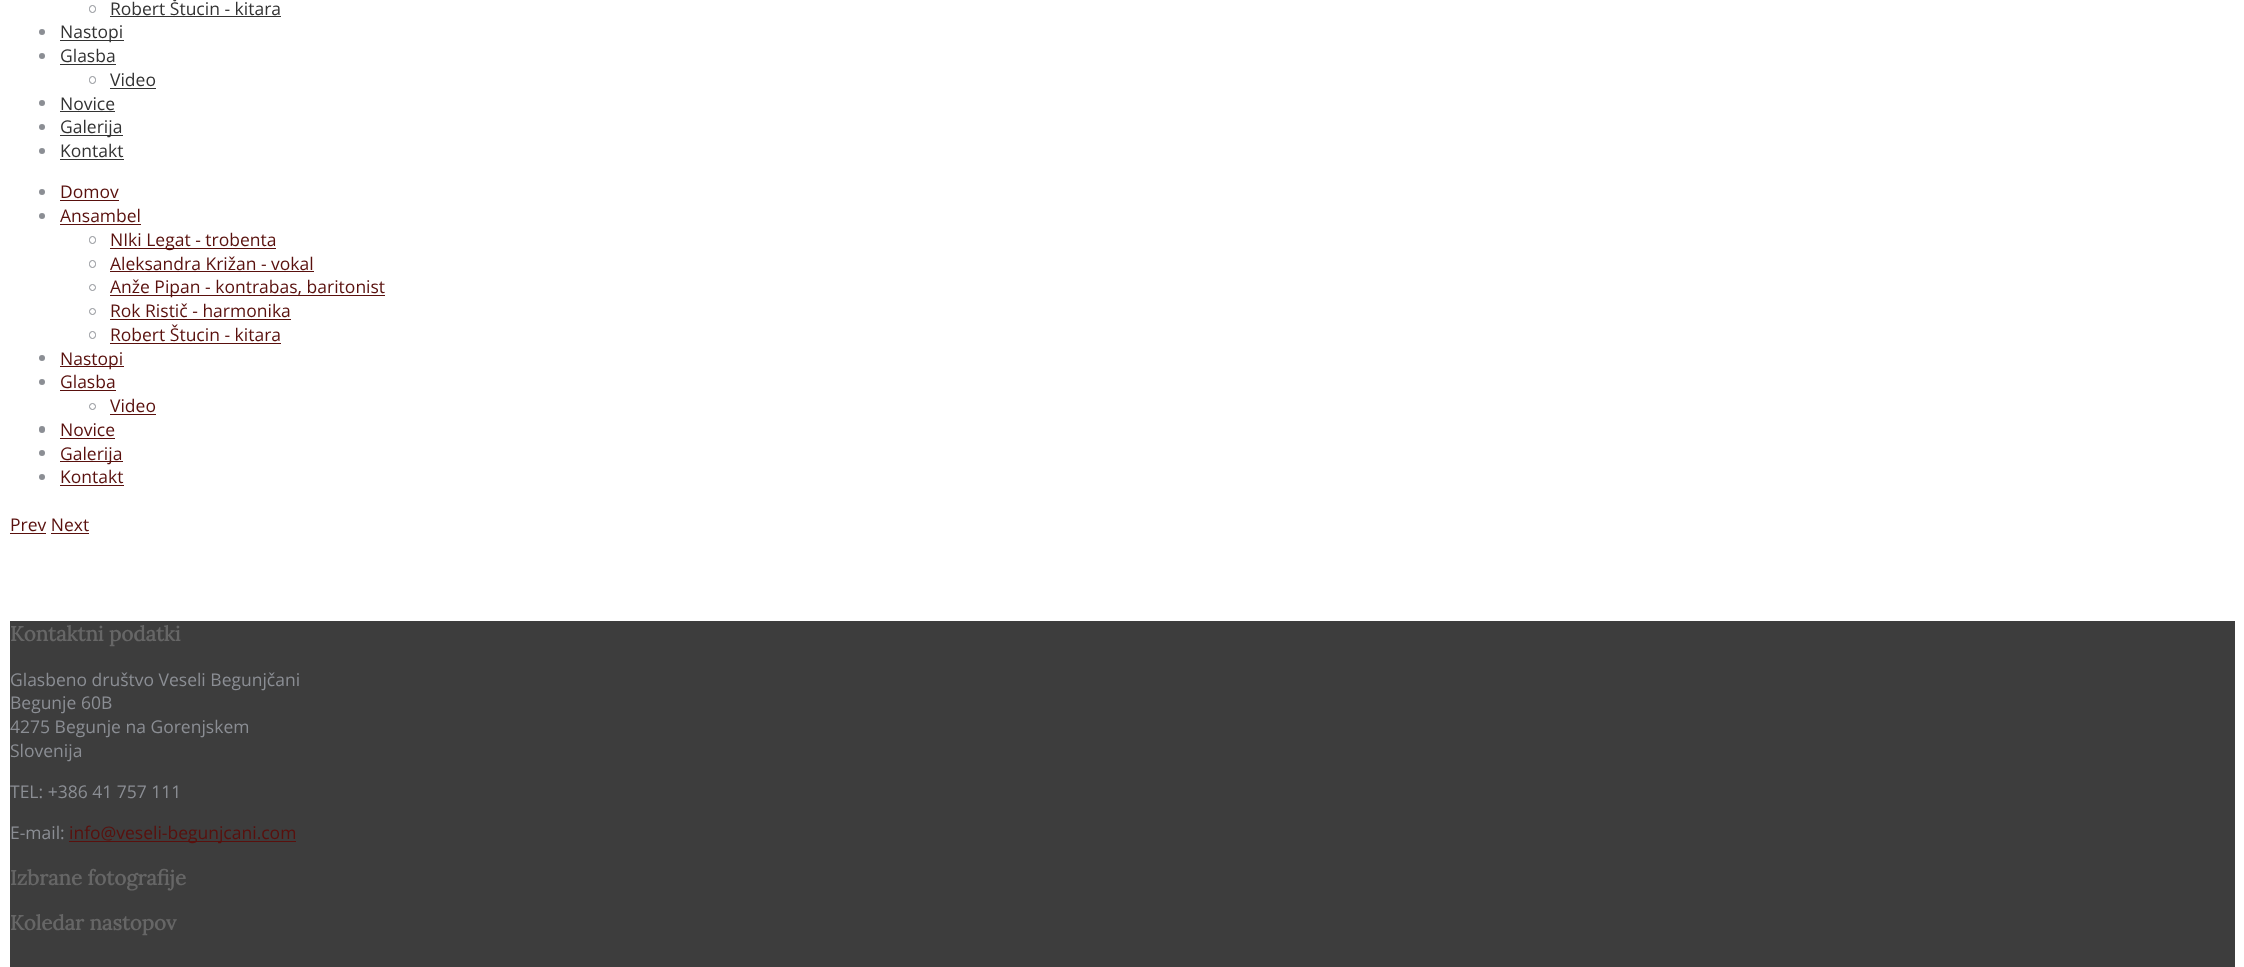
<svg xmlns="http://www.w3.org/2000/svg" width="2244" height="967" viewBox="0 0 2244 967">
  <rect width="100%" height="100%" fill="#ffffff"/>
  <rect x="89.5" y="5.5" width="6" height="7" rx="3" fill="none" stroke="#8b8e94"/>
  <text x="110" y="15" font-family="Open Sans" font-size="17.5" fill="#333333">Robert Štucin - kitara</text>
  <rect x="110" y="16" width="171" height="1" fill="#333333"/>
  <circle cx="42" cy="32" r="3" fill="#8b8e94"/>
  <rect x="60" y="40" width="64" height="1" fill="#333333"/>
  <text x="60" y="38" font-family="Open Sans" font-size="17.5" fill="#333333">Nastopi</text>
  <circle cx="42" cy="56" r="3" fill="#8b8e94"/>
  <text x="60" y="62" font-family="Open Sans" font-size="17.5" fill="#333333">Glasba</text>
  <rect x="60" y="64" width="56" height="1" fill="#333333"/>
  <rect x="89.5" y="76.5" width="6" height="7" rx="3" fill="none" stroke="#8b8e94"/>
  <text x="110" y="86" font-family="Open Sans" font-size="17.5" fill="#333333">Video</text>
  <rect x="110" y="88" width="46" height="1" fill="#333333"/>
  <circle cx="42" cy="103" r="3" fill="#8b8e94"/>
  <text x="60" y="110" font-family="Open Sans" font-size="17.5" fill="#333333">Novice</text>
  <rect x="60" y="111" width="55" height="1" fill="#333333"/>
  <circle cx="42" cy="127" r="3" fill="#8b8e94"/>
  <rect x="60" y="135" width="63" height="1" fill="#333333"/>
  <text x="60" y="133" font-family="Open Sans" font-size="17.5" fill="#333333">Galerija</text>
  <circle cx="42" cy="151" r="3" fill="#8b8e94"/>
  <text x="60" y="157" font-family="Open Sans" font-size="17.5" fill="#333333">Kontakt</text>
  <rect x="60" y="159" width="64" height="1" fill="#333333"/>
  <circle cx="42" cy="192" r="3" fill="#8b8e94"/>
  <text x="60" y="198" font-family="Open Sans" font-size="17.5" fill="#59100d">Domov</text>
  <rect x="60" y="200" width="59" height="1" fill="#59100d"/>
  <circle cx="42" cy="216" r="3" fill="#8b8e94"/>
  <text x="60" y="222" font-family="Open Sans" font-size="17.5" fill="#59100d">Ansambel</text>
  <rect x="60" y="224" width="81" height="1" fill="#59100d"/>
  <rect x="89.5" y="236.5" width="6" height="7" rx="3" fill="none" stroke="#8b8e94"/>
  <rect x="110" y="248" width="166" height="1" fill="#59100d"/>
  <text x="110" y="246" font-family="Open Sans" font-size="17.5" fill="#59100d">NIki Legat - trobenta</text>
  <rect x="89.5" y="260.5" width="6" height="7" rx="3" fill="none" stroke="#8b8e94"/>
  <text x="110" y="270" font-family="Open Sans" font-size="17.5" fill="#59100d">Aleksandra Križan - vokal</text>
  <rect x="110" y="271" width="204" height="1" fill="#59100d"/>
  <circle cx="92.5" cy="287.5" r="3" fill="none" stroke="#8b8e94"/>
  <rect x="110" y="295" width="275" height="1" fill="#59100d"/>
  <text x="110" y="293" font-family="Open Sans" font-size="17.5" fill="#59100d">Anže Pipan - kontrabas, baritonist</text>
  <circle cx="92.5" cy="311.5" r="3" fill="none" stroke="#8b8e94"/>
  <text x="110" y="317" font-family="Open Sans" font-size="17.5" fill="#59100d">Rok Ristič - harmonika</text>
  <rect x="110" y="319" width="181" height="1" fill="#59100d"/>
  <rect x="89.5" y="331.5" width="6" height="7" rx="3" fill="none" stroke="#8b8e94"/>
  <text x="110" y="341" font-family="Open Sans" font-size="17.5" fill="#59100d">Robert Štucin - kitara</text>
  <rect x="110" y="343" width="171" height="1" fill="#59100d"/>
  <circle cx="42" cy="358" r="3" fill="#8b8e94"/>
  <rect x="60" y="366" width="64" height="1" fill="#59100d"/>
  <text x="60" y="365" font-family="Open Sans" font-size="17.5" fill="#59100d">Nastopi</text>
  <circle cx="42" cy="382" r="3" fill="#8b8e94"/>
  <text x="60" y="388" font-family="Open Sans" font-size="17.5" fill="#59100d">Glasba</text>
  <rect x="60" y="390" width="56" height="1" fill="#59100d"/>
  <circle cx="92.5" cy="406.5" r="3" fill="none" stroke="#8b8e94"/>
  <text x="110" y="412" font-family="Open Sans" font-size="17.5" fill="#59100d">Video</text>
  <rect x="110" y="414" width="46" height="1" fill="#59100d"/>
  <rect x="39" y="426" width="6" height="7" rx="3" fill="#8b8e94"/>
  <text x="60" y="436" font-family="Open Sans" font-size="17.5" fill="#59100d">Novice</text>
  <rect x="60" y="438" width="55" height="1" fill="#59100d"/>
  <circle cx="42" cy="453" r="3" fill="#8b8e94"/>
  <rect x="60" y="461" width="63" height="1" fill="#59100d"/>
  <text x="60" y="460" font-family="Open Sans" font-size="17.5" fill="#59100d">Galerija</text>
  <circle cx="42" cy="477" r="3" fill="#8b8e94"/>
  <text x="60" y="483" font-family="Open Sans" font-size="17.5" fill="#59100d">Kontakt</text>
  <rect x="60" y="485" width="64" height="1" fill="#59100d"/>
  <text x="10" y="531" font-family="Open Sans" font-size="17.5" fill="#59100d">Prev Next</text>
  <rect x="10" y="533" width="36" height="1" fill="#59100d"/>
  <rect x="51" y="533" width="38" height="1" fill="#59100d"/>
  <rect x="10" y="621" width="2225" height="346" fill="#3d3d3d"/>
  <text x="10" y="641" font-family="Lora" font-size="20.5" font-weight="bold" fill="#666666">Kontaktni podatki</text>
  <text x="10" y="686" font-family="Open Sans" font-size="17.5" fill="#8b8e94">Glasbeno društvo Veseli Begunjčani</text>
  <text x="10" y="709" font-family="Open Sans" font-size="17.5" fill="#8b8e94">Begunje 60B</text>
  <text x="10" y="733" font-family="Open Sans" font-size="17.5" fill="#8b8e94">4275 Begunje na Gorenjskem</text>
  <text x="10" y="757" font-family="Open Sans" font-size="17.5" fill="#8b8e94">Slovenija</text>
  <text x="10" y="798" font-family="Open Sans" font-size="17.5" fill="#8b8e94">TEL: +386 41 757 111</text>
  <text x="10" y="839" font-family="Open Sans" font-size="17.5" fill="#8b8e94">E-mail:</text>
  <rect x="69" y="841" width="227" height="1" fill="#59100d"/>
  <text x="69" y="839" font-family="Open Sans" font-size="17.5" fill="#59100d">info@veseli-begunjcani.com</text>
  <text x="10" y="885" font-family="Lora" font-size="20.5" font-weight="bold" fill="#666666">Izbrane fotografije</text>
  <text x="10" y="930" font-family="Lora" font-size="20.5" font-weight="bold" fill="#666666">Koledar nastopov</text>
</svg>
